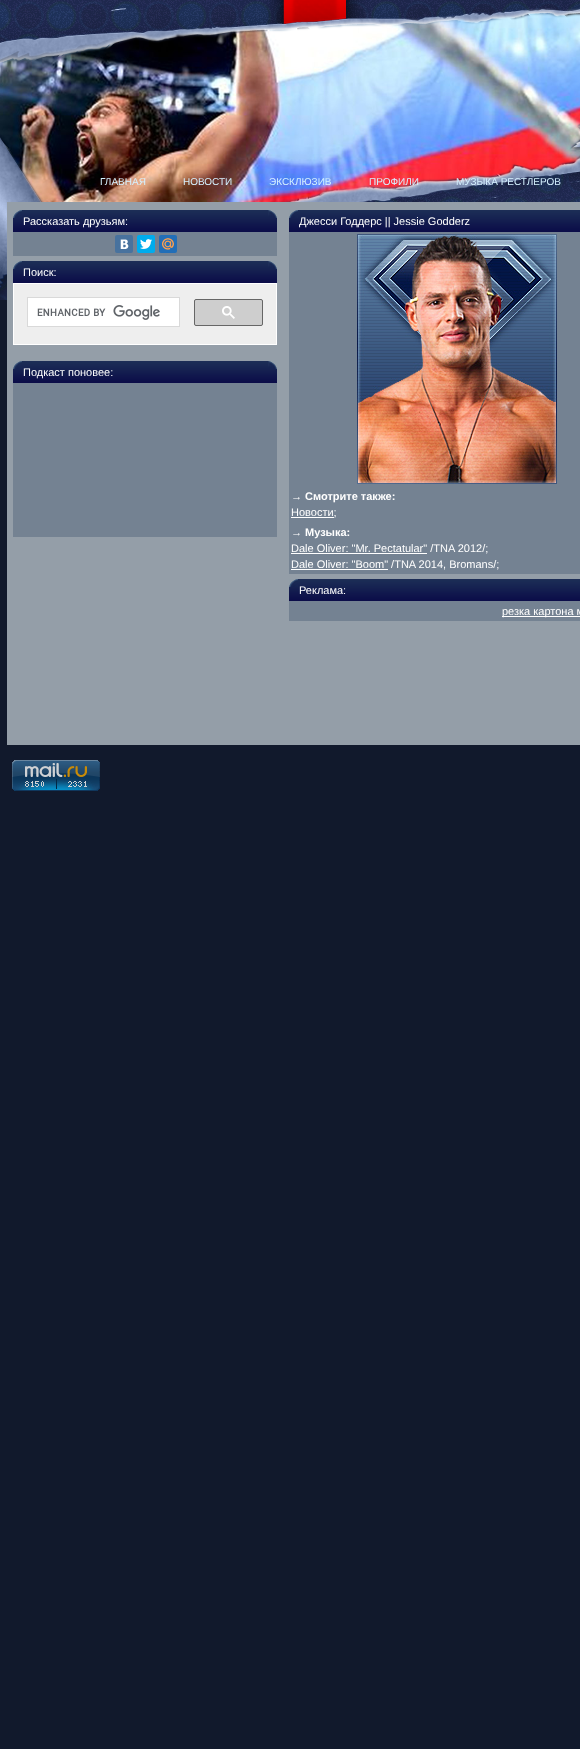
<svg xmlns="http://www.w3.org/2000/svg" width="580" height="1749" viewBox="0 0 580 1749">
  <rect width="100%" height="100%" fill="#11192c"/>
  <image x="0" y="0" width="580" height="300" href="img1.png"/>
  <text x="100" y="185" font-family="Liberation Sans" font-size="10" fill="#d5f1ff">ГЛАВНАЯ</text>
  <text x="183" y="185" font-family="Liberation Sans" font-size="10" fill="#d5f1ff">НОВОСТИ</text>
  <text x="269" y="185" font-family="Liberation Sans" font-size="10" fill="#d5f1ff">ЭКСКЛЮЗИВ</text>
  <text x="369" y="185" font-family="Liberation Sans" font-size="10" fill="#d5f1ff">ПРОФИЛИ</text>
  <text x="456" y="185" font-family="Liberation Sans" font-size="10" fill="#d5f1ff">МУЗЫКА РЕСТЛЕРОВ</text>
  <rect x="7" y="202" width="573" height="543" fill="#949ea8"/>
  <image x="13" y="210" width="264" height="22" href="img2.png"/>
  <image x="13" y="210" width="9" height="8" href="img3.png"/>
  <image x="268" y="210" width="9" height="8" href="img4.png"/>
  <text x="23" y="225" font-family="Liberation Sans" font-size="11" fill="#ffffff">Рассказать друзьям:</text>
  <rect x="13" y="232" width="264" height="24" fill="#748292"/>
  <rect x="115" y="235" width="18" height="18" rx="2" fill="#48729e"/>
  <image x="120" y="239" width="9" height="10" href="img5.png"/>
  <rect x="137" y="235" width="18" height="18" rx="2" fill="#00aced"/>
  <image x="140" y="239" width="12" height="10" href="img6.png"/>
  <rect x="159" y="235" width="18" height="18" rx="2" fill="#226eb7"/>
  <image x="162" y="238" width="12" height="12" href="img7.png"/>
  <image x="13" y="261" width="264" height="22" href="img2.png"/>
  <image x="13" y="261" width="9" height="8" href="img3.png"/>
  <image x="268" y="261" width="9" height="8" href="img4.png"/>
  <text x="23" y="276" font-family="Liberation Sans" font-size="11" fill="#ffffff">Поиск:</text>
  <rect x="13.5" y="283.5" width="263" height="61" fill="#eeeeee" stroke="#ffffff"/>
  <rect x="27.5" y="297.5" width="152" height="29" fill="#ffffff" stroke="#d9d9d9"/>
  <image x="37" y="305" width="123" height="15" href="img8.png"/>
  <rect x="194.5" y="299.5" width="68" height="26" rx="1.5" fill="#cecece" stroke="#666666"/>
  <image x="222" y="306" width="13" height="13" href="img9.png"/>
  <image x="13" y="361" width="264" height="22" href="img2.png"/>
  <image x="13" y="361" width="9" height="8" href="img3.png"/>
  <image x="268" y="361" width="9" height="8" href="img4.png"/>
  <text x="23" y="376" font-family="Liberation Sans" font-size="11" fill="#ffffff">Подкаст поновее:</text>
  <rect x="13" y="383" width="264" height="154" fill="#748292"/>
  <image x="289" y="210" width="291" height="22" href="img10.png"/>
  <image x="289" y="210" width="9" height="8" href="img3.png"/>
  <text x="299" y="225" font-family="Liberation Sans" font-size="11" fill="#ffffff">Джесси Годдерс || Jessie Godderz</text>
  <rect x="289" y="232" width="291" height="342" fill="#748292"/>
  <image x="357" y="234" width="200" height="250" href="img11.png"/>
  <text x="291" y="500" font-family="Liberation Sans" font-size="11" font-weight="bold" fill="#ffffff">→ Смотрите также:</text>
  <rect x="291" y="517" width="43" height="1" fill="#ffffff"/>
  <text x="291" y="516" font-family="Liberation Sans" font-size="11" fill="#ffffff">Новости;</text>
  <text x="291" y="536" font-family="Liberation Sans" font-size="11" fill="#ffffff">→</text>
  <text x="305" y="536" font-family="Liberation Sans" font-size="11" font-weight="bold" fill="#ffffff">Музыка:</text>
  <rect x="291" y="553" width="136" height="1" fill="#ffffff"/>
  <text x="291" y="552" font-family="Liberation Sans" font-size="11" fill="#ffffff">Dale Oliver: "Mr. Pectatular" /TNA 2012/;</text>
  <rect x="291" y="569" width="97" height="1" fill="#ffffff"/>
  <text x="291" y="568" font-family="Liberation Sans" font-size="11" fill="#ffffff">Dale Oliver: "Boom" /TNA 2014, Bromans/;</text>
  <image x="289" y="579" width="291" height="22" href="img10.png"/>
  <image x="289" y="579" width="9" height="8" href="img3.png"/>
  <text x="299" y="594" font-family="Liberation Sans" font-size="11" fill="#ffffff">Реклама:</text>
  <rect x="289" y="601" width="291" height="20" fill="#748292"/>
  <rect x="502" y="616" width="78" height="1" fill="#ffffff"/>
  <text x="502" y="615" font-family="Liberation Sans" font-size="11" fill="#ffffff">резка картона м</text>
  <image x="12" y="760" width="88" height="31" href="img12.png"/>
</svg>
